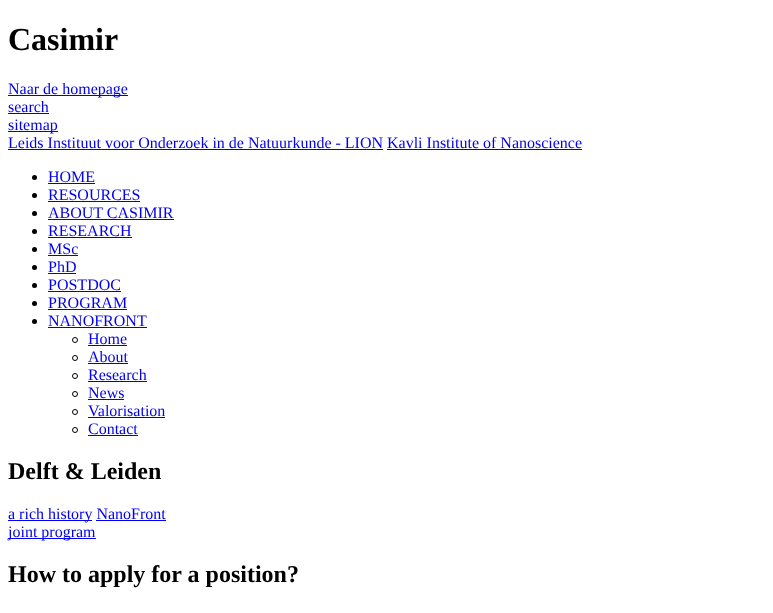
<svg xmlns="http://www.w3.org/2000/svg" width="773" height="613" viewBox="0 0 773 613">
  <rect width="100%" height="100%" fill="#ffffff"/>
  <text x="8" y="50" font-family="Liberation Serif" font-size="32" font-weight="bold" fill="#000000">Casimir</text>
  <rect x="8" y="95" width="120" height="1" fill="#0000ee"/>
  <text x="8" y="94" font-family="Liberation Serif" font-size="16" fill="#0000ee">Naar de homepage</text>
  <text x="8" y="112" font-family="Liberation Serif" font-size="16" fill="#0000ee">search</text>
  <rect x="8" y="113" width="41" height="1" fill="#0000ee"/>
  <rect x="8" y="131" width="50" height="1" fill="#0000ee"/>
  <text x="8" y="130" font-family="Liberation Serif" font-size="16" fill="#0000ee">sitemap</text>
  <text x="8" y="148" font-family="Liberation Serif" font-size="16" fill="#0000ee">Leids Instituut voor Onderzoek in de Natuurkunde - LION Kavli Institute of Nanoscience</text>
  <rect x="8" y="149" width="375" height="1" fill="#0000ee"/>
  <rect x="387" y="149" width="195" height="1" fill="#0000ee"/>
  <circle cx="34.5" cy="177.5" r="2.5" fill="#000000"/>
  <text x="48" y="182" font-family="Liberation Serif" font-size="16" fill="#0000ee">HOME</text>
  <rect x="48" y="183" width="47" height="1" fill="#0000ee"/>
  <circle cx="34.5" cy="195.5" r="2.5" fill="#000000"/>
  <text x="48" y="200" font-family="Liberation Serif" font-size="16" fill="#0000ee">RESOURCES</text>
  <rect x="48" y="201" width="92" height="1" fill="#0000ee"/>
  <circle cx="34.5" cy="213.5" r="2.5" fill="#000000"/>
  <text x="48" y="218" font-family="Liberation Serif" font-size="16" fill="#0000ee">ABOUT CASIMIR</text>
  <rect x="48" y="219" width="126" height="1" fill="#0000ee"/>
  <circle cx="34.5" cy="231.5" r="2.5" fill="#000000"/>
  <text x="48" y="236" font-family="Liberation Serif" font-size="16" fill="#0000ee">RESEARCH</text>
  <rect x="48" y="237" width="84" height="1" fill="#0000ee"/>
  <circle cx="34.5" cy="249.5" r="2.5" fill="#000000"/>
  <text x="48" y="254" font-family="Liberation Serif" font-size="16" fill="#0000ee">MSc</text>
  <rect x="48" y="255" width="30" height="1" fill="#0000ee"/>
  <circle cx="34.5" cy="267.5" r="2.5" fill="#000000"/>
  <text x="48" y="272" font-family="Liberation Serif" font-size="16" fill="#0000ee">PhD</text>
  <rect x="48" y="273" width="28" height="1" fill="#0000ee"/>
  <circle cx="34.5" cy="285.5" r="2.5" fill="#000000"/>
  <text x="48" y="290" font-family="Liberation Serif" font-size="16" fill="#0000ee">POSTDOC</text>
  <rect x="48" y="291" width="73" height="1" fill="#0000ee"/>
  <circle cx="34.5" cy="303.5" r="2.5" fill="#000000"/>
  <text x="48" y="308" font-family="Liberation Serif" font-size="16" fill="#0000ee">PROGRAM</text>
  <rect x="48" y="309" width="79" height="1" fill="#0000ee"/>
  <circle cx="34.5" cy="321.5" r="2.5" fill="#000000"/>
  <text x="48" y="326" font-family="Liberation Serif" font-size="16" fill="#0000ee">NANOFRONT</text>
  <rect x="48" y="327" width="99" height="1" fill="#0000ee"/>
  <circle cx="75" cy="340" r="2.5" fill="none" stroke="#000000"/>
  <text x="88" y="344" font-family="Liberation Serif" font-size="16" fill="#0000ee">Home</text>
  <rect x="88" y="345" width="39" height="1" fill="#0000ee"/>
  <circle cx="75" cy="358" r="2.5" fill="none" stroke="#000000"/>
  <text x="88" y="362" font-family="Liberation Serif" font-size="16" fill="#0000ee">About</text>
  <rect x="88" y="363" width="40" height="1" fill="#0000ee"/>
  <circle cx="75" cy="376" r="2.5" fill="none" stroke="#000000"/>
  <text x="88" y="380" font-family="Liberation Serif" font-size="16" fill="#0000ee">Research</text>
  <rect x="88" y="381" width="59" height="1" fill="#0000ee"/>
  <circle cx="75" cy="394" r="2.5" fill="none" stroke="#000000"/>
  <text x="88" y="398" font-family="Liberation Serif" font-size="16" fill="#0000ee">News</text>
  <rect x="88" y="399" width="36" height="1" fill="#0000ee"/>
  <circle cx="75" cy="412" r="2.5" fill="none" stroke="#000000"/>
  <text x="88" y="416" font-family="Liberation Serif" font-size="16" fill="#0000ee">Valorisation</text>
  <rect x="88" y="417" width="77" height="1" fill="#0000ee"/>
  <circle cx="75" cy="430" r="2.5" fill="none" stroke="#000000"/>
  <text x="88" y="434" font-family="Liberation Serif" font-size="16" fill="#0000ee">Contact</text>
  <rect x="88" y="435" width="50" height="1" fill="#0000ee"/>
  <text x="8" y="479" font-family="Liberation Serif" font-size="24" font-weight="bold" fill="#000000">Delft &amp; Leiden</text>
  <rect x="8" y="520" width="84" height="1" fill="#0000ee"/>
  <text x="8" y="519" font-family="Liberation Serif" font-size="16" fill="#0000ee">a rich history NanoFront</text>
  <rect x="8" y="538" width="88" height="1" fill="#0000ee"/>
  <text x="8" y="537" font-family="Liberation Serif" font-size="16" fill="#0000ee">joint program</text>
  <rect x="96" y="520" width="70" height="1" fill="#0000ee"/>
  <text x="8" y="582" font-family="Liberation Serif" font-size="24" font-weight="bold" fill="#000000">How to apply for a position?</text>
</svg>
